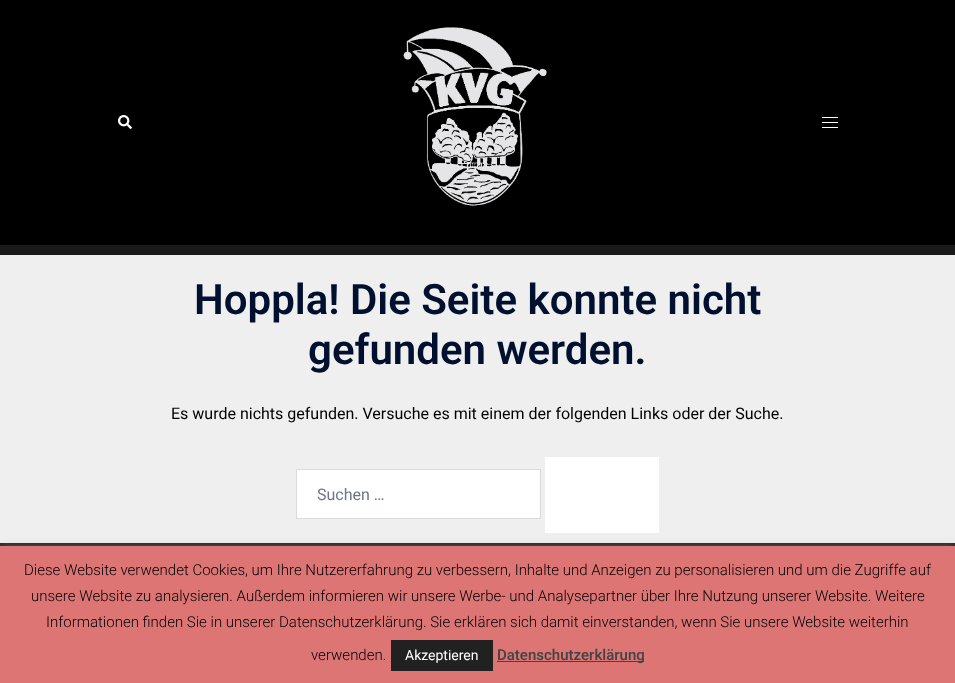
<svg xmlns="http://www.w3.org/2000/svg" width="955" height="683" viewBox="0 0 955 683">
  <defs>
    <filter id="blur1" x="-50%" y="-200%" width="200%" height="500%"><feGaussianBlur stdDeviation="5"/></filter>
  </defs>
  <rect width="100%" height="100%" fill="#efefef"/>
  <rect x="0" y="0" width="955" height="245" fill="#000000"/>
  <rect x="0" y="245" width="955" height="10" fill="#1a1a1a"/>
  <image x="118" y="115" width="14" height="14" href="img1.png"/>
  <image x="403" y="27" width="144" height="179" href="img2.png"/>
  <rect x="822" y="117" width="16" height="1" fill="#ffffff"/>
  <rect x="822" y="122" width="16" height="1" fill="#ffffff"/>
  <rect x="822" y="127" width="16" height="1" fill="#ffffff"/>
  <text x="194" y="314" font-family="Roboto" font-size="42" font-weight="600" fill="#00102e">Hoppla! Die Seite konnte nicht</text>
  <text x="308" y="364" font-family="Roboto" font-size="42" font-weight="600" fill="#00102e">gefunden werden.</text>
  <text x="171" y="419" font-family="Roboto" font-size="16" fill="#000000">Es wurde nichts gefunden. Versuche es mit einem der folgenden Links oder der Suche.</text>
  <rect x="296.5" y="469.5" width="244" height="49" fill="#ffffff" stroke="#dbdbdb"/>
  <text x="317" y="500" font-family="Roboto" font-size="16" fill="#6d7685">Suchen …</text>
  <rect x="545" y="457" width="114" height="76" fill="#ffffff"/>
  <rect x="0" y="543" width="955" height="3" fill="#252525"/>
  <rect x="0" y="545" width="955" height="137" fill="#acabab" fill-opacity="0.3" filter="url(#blur1)"/>
  <rect x="0" y="546" width="955" height="137" fill="#dd7575"/>
  <text x="24" y="575" font-family="Roboto" font-size="15" font-weight="300" fill="#000000">Diese Website verwendet Cookies, um Ihre Nutzererfahrung zu verbessern, Inhalte und Anzeigen zu personalisieren und um die Zugriffe auf</text>
  <text x="31" y="601" font-family="Roboto" font-size="15" font-weight="300" fill="#000000">unsere Website zu analysieren. Außerdem informieren wir unsere Werbe- und Analysepartner über Ihre Nutzung unserer Website. Weitere</text>
  <text x="46" y="627" font-family="Roboto" font-size="15" font-weight="300" fill="#000000">Informationen finden Sie in unserer Datenschutzerklärung. Sie erklären sich damit einverstanden, wenn Sie unsere Website weiterhin</text>
  <text x="311" y="660" font-family="Roboto" font-size="15" font-weight="300" fill="#000000">verwenden.</text>
  <rect x="391" y="640" width="102" height="31" fill="#212121"/>
  <text x="405" y="660" font-family="Roboto" font-size="14" fill="#ffffff">Akzeptieren</text>
  <rect x="497" y="661" width="147" height="1" fill="#444444"/>
  <text x="497" y="660" font-family="Roboto" font-size="15" font-weight="500" fill="#444444">Datenschutzerklärung</text>
</svg>
